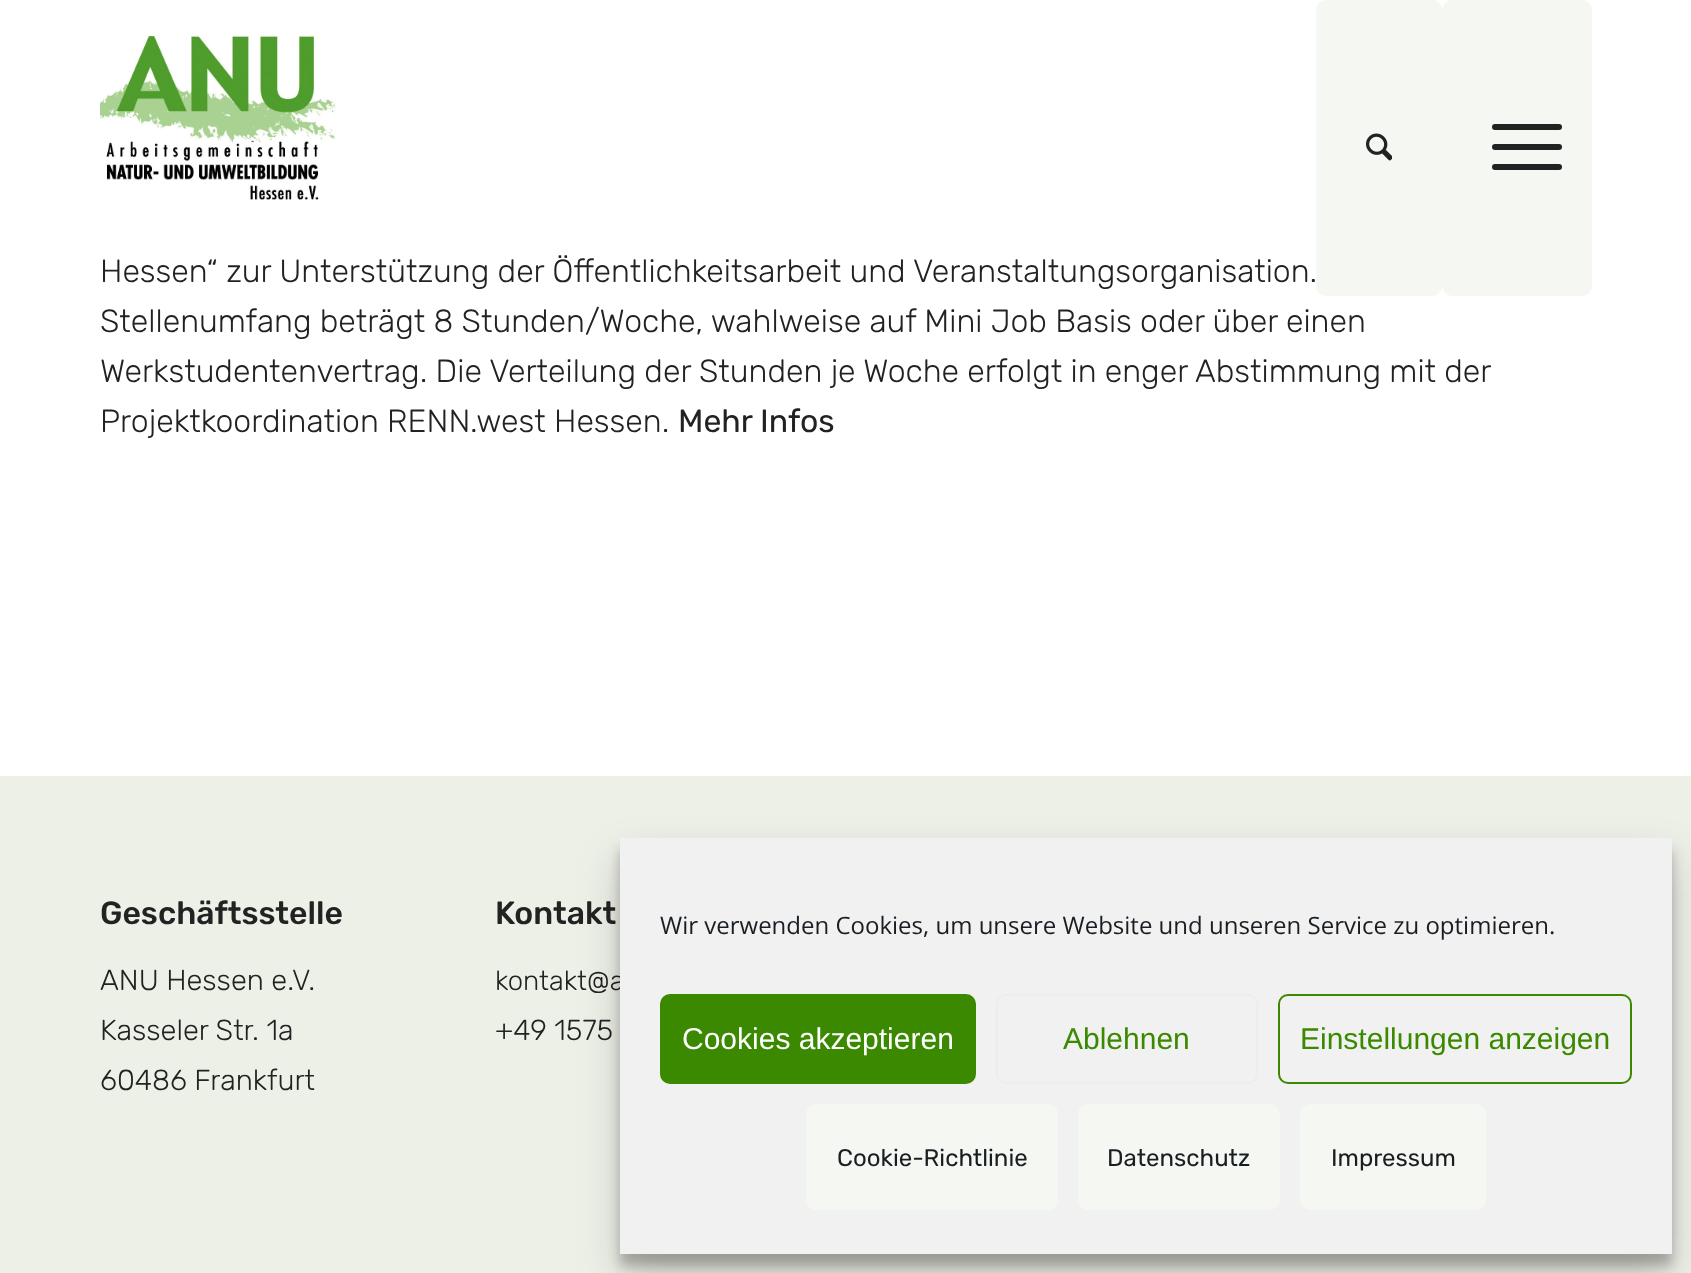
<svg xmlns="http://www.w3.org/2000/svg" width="1691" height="1273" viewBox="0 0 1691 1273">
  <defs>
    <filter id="blur1" x="-50%" y="-200%" width="200%" height="500%"><feGaussianBlur stdDeviation="6"/></filter>
    <filter id="blur2" x="-50%" y="-200%" width="200%" height="500%"><feGaussianBlur stdDeviation="20"/></filter>
  </defs>
  <rect width="100%" height="100%" fill="#ffffff"/>
  <image x="100" y="35" width="236" height="165" href="img1.png"/>
  <rect x="1316" y="0" width="126" height="296" rx="10" fill="#f5f7f2"/>
  <image x="1366" y="133" width="26" height="28" href="img2.png"/>
  <rect x="1442" y="0" width="150" height="296" rx="10" fill="#f5f7f2"/>
  <rect x="1492" y="144" width="70" height="6" rx="3" fill="#222222"/>
  <rect x="1492" y="124" width="70" height="6" rx="3" fill="#222222"/>
  <rect x="1492" y="164" width="70" height="6" rx="3" fill="#222222"/>
  <text x="100" y="282" font-family="Rubik" font-size="32" font-weight="300" fill="#222222">Hessen“ zur Unterstützung der Öffentlichkeitsarbeit und Veranstaltungsorganisation.</text>
  <text x="100" y="332" font-family="Rubik" font-size="32" font-weight="300" fill="#222222">Stellenumfang beträgt 8 Stunden/Woche, wahlweise auf Mini Job Basis oder über einen</text>
  <text x="100" y="382" font-family="Rubik" font-size="32" font-weight="300" fill="#222222">Werkstudentenvertrag. Die Verteilung der Stunden je Woche erfolgt in enger Abstimmung mit der</text>
  <text x="100" y="432" font-family="Rubik" font-size="32" font-weight="300" fill="#222222">Projektkoordination RENN.west Hessen.</text>
  <text x="678" y="432" font-family="'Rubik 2'" font-size="32" font-weight="300" fill="#222222">Mehr Infos</text>
  <rect x="0" y="776" width="1691" height="497" fill="#edf0e7"/>
  <text x="100" y="924" font-family="'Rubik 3'" font-size="32" font-weight="300" fill="#222222">Geschäftsstelle</text>
  <text x="100" y="990" font-family="Rubik" font-size="29" font-weight="300" fill="#222222">ANU Hessen e.V.</text>
  <text x="100" y="1040" font-family="Rubik" font-size="29" font-weight="300" fill="#222222">Kasseler Str. 1a</text>
  <text x="100" y="1090" font-family="Rubik" font-size="29" font-weight="300" fill="#222222">60486 Frankfurt</text>
  <text x="495" y="924" font-family="'Rubik 3'" font-size="32" font-weight="300" fill="#222222">Kontakt</text>
  <text x="495" y="990" font-family="Rubik" font-size="27.5" font-weight="300" fill="#222222">kontakt@a</text>
  <text x="495" y="1040" font-family="Rubik" font-size="29" font-weight="300" fill="#222222">+49 1575</text>
  <rect x="620" y="850" width="1052" height="416" fill="#000000" fill-opacity="0.23" filter="url(#blur1)"/>
  <rect x="620" y="858" width="1052" height="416" fill="#000000" fill-opacity="0.19" filter="url(#blur2)"/>
  <rect x="620" y="838" width="1052" height="416" fill="#f1f1f1"/>
  <text x="660" y="934" font-family="Open Sans" font-size="24" fill="#191e23">Wir verwenden Cookies, um unsere Website und unseren Service zu optimieren.</text>
  <rect x="661" y="995" width="314" height="88" rx="9" fill="#3b8900" stroke="#3b8900" stroke-width="2"/>
  <text x="682" y="1049" font-family="Liberation Sans" font-size="30" fill="#ffffff">Cookies akzeptieren</text>
  <rect x="997" y="995" width="260" height="88" rx="9" fill="none" stroke="#ededed" stroke-width="2"/>
  <text x="1063" y="1049" font-family="Liberation Sans" font-size="30" fill="#3b8900">Ablehnen</text>
  <rect x="1279" y="995" width="352" height="88" rx="9" fill="none" stroke="#3b8900" stroke-width="2"/>
  <text x="1300" y="1049" font-family="Liberation Sans" font-size="30" fill="#3b8900">Einstellungen anzeigen</text>
  <rect x="806" y="1104" width="252" height="106" rx="10" fill="#f5f7f2"/>
  <text x="837" y="1166" font-family="'Rubik 2'" font-size="24" font-weight="300" fill="#191e23">Cookie-Richtlinie</text>
  <rect x="1078" y="1104" width="202" height="106" rx="10" fill="#f5f7f2"/>
  <text x="1107" y="1166" font-family="'Rubik 2'" font-size="24" font-weight="300" fill="#191e23">Datenschutz</text>
  <rect x="1300" y="1104" width="186" height="106" rx="10" fill="#f5f7f2"/>
  <text x="1331" y="1166" font-family="'Rubik 2'" font-size="24" font-weight="300" fill="#191e23">Impressum</text>
</svg>
